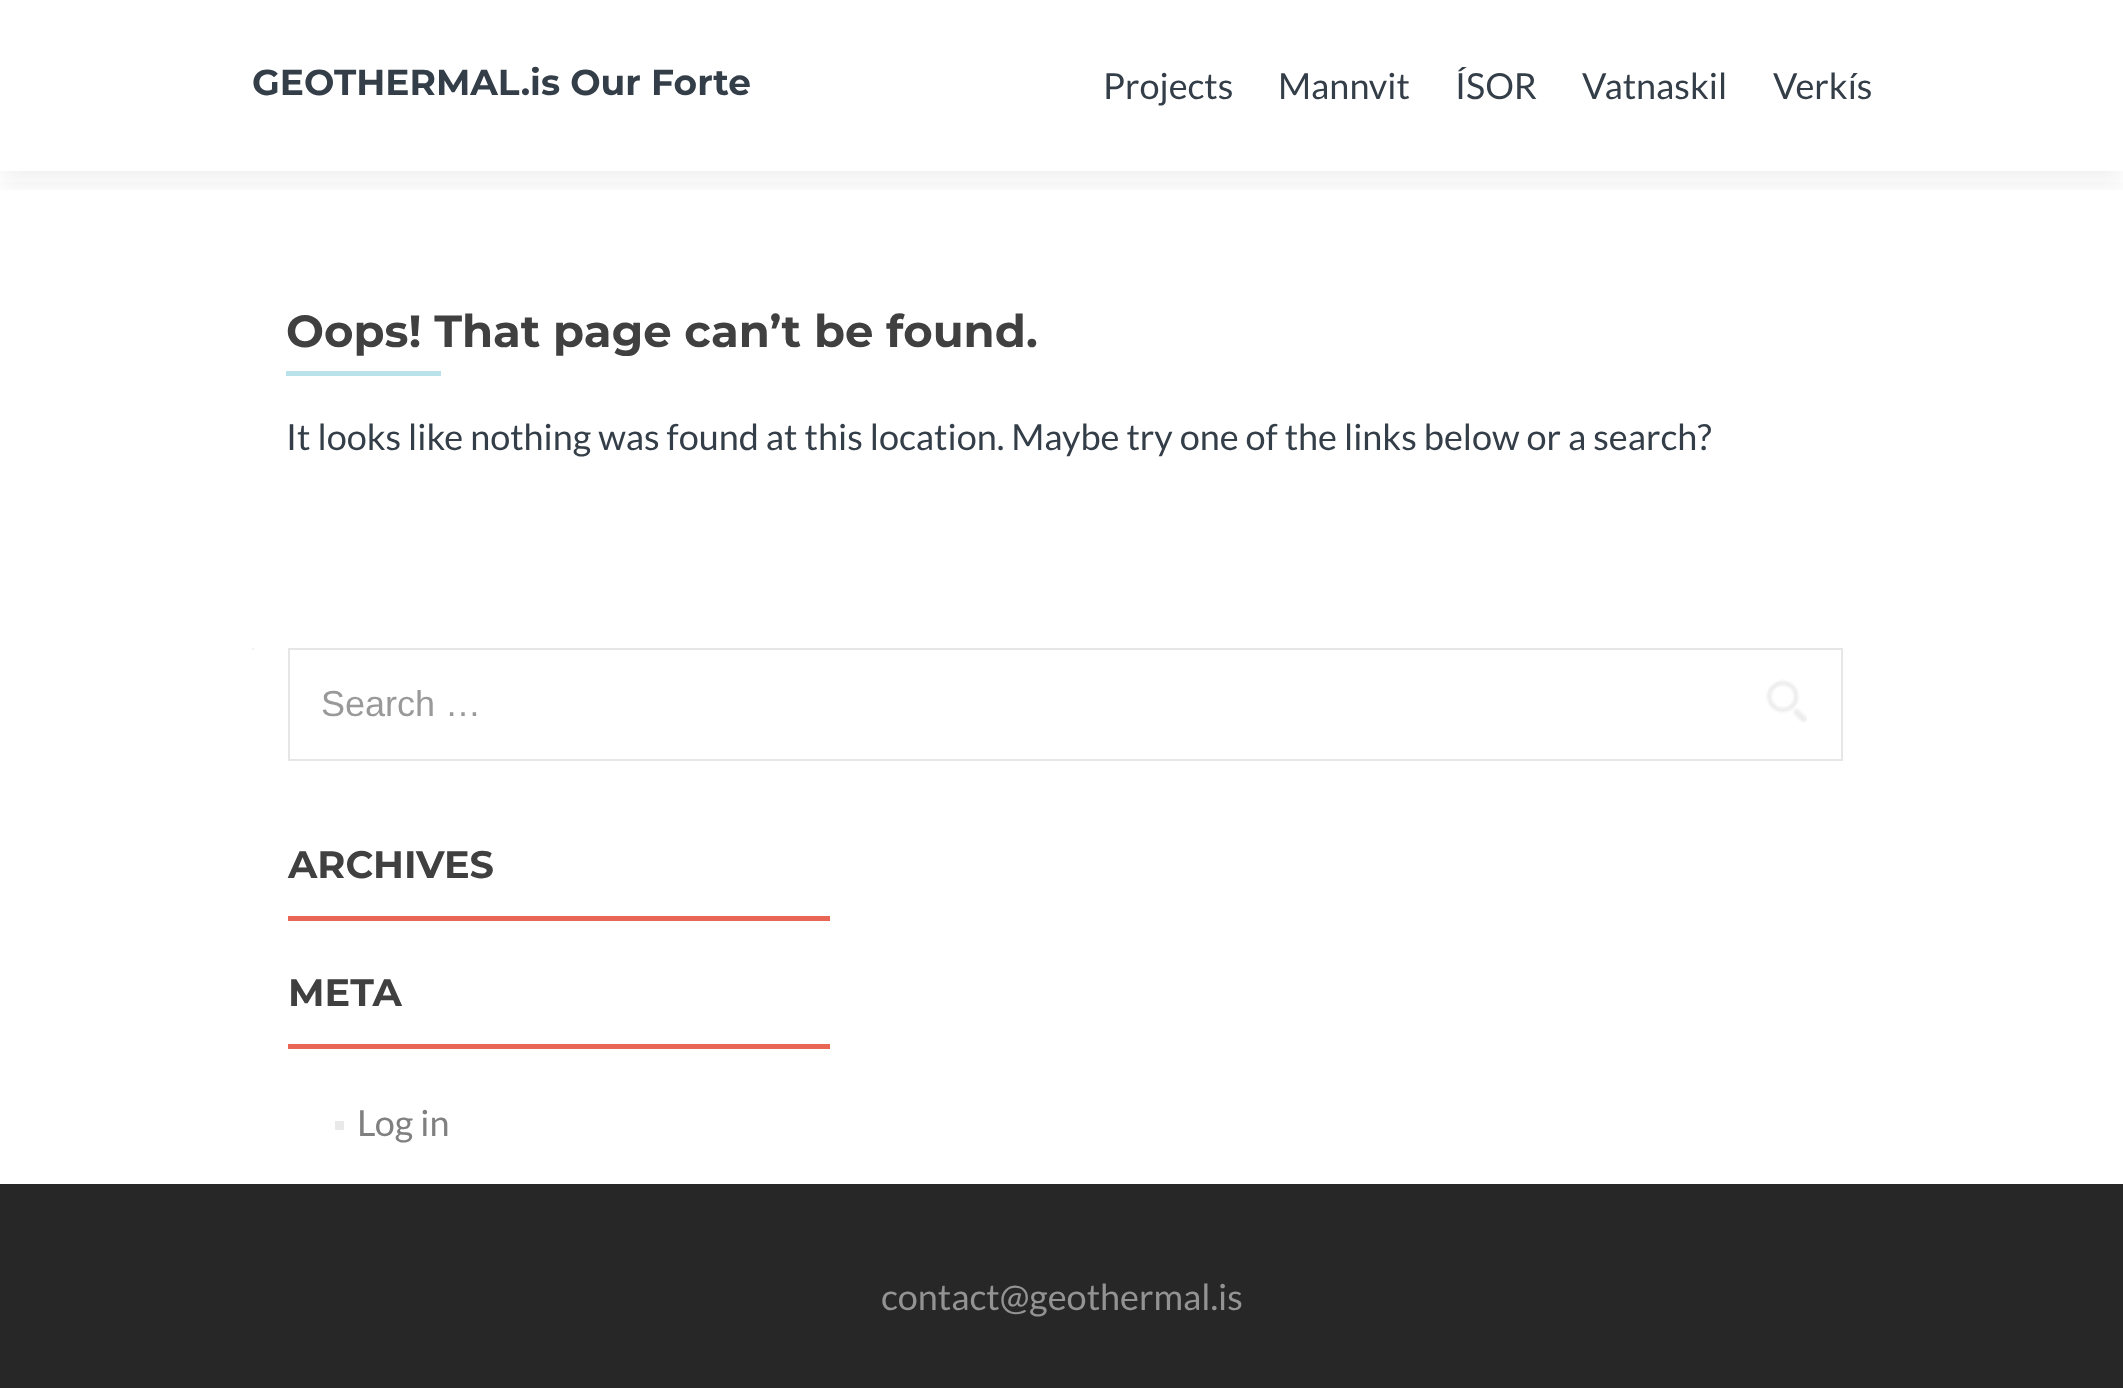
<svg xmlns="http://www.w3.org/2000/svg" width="2123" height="1388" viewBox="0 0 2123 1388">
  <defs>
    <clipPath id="clip1"><rect x="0" y="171" width="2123" height="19"/></clipPath>
    <filter id="blur1" x="-50%" y="-200%" width="200%" height="500%"><feGaussianBlur stdDeviation="12.5"/></filter>
  </defs>
  <rect width="100%" height="100%" fill="#ffffff"/>
  <g clip-path="url(#clip1)">
    <rect x="0" y="11" width="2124" height="171" fill="#323232" fill-opacity="0.08" filter="url(#blur1)"/>
  </g>
  <text x="252" y="95" font-family="Montserrat" font-size="36" font-weight="bold" fill="#343e48">GEOTHERMAL.is Our Forte</text>
  <text x="1103" y="99" font-family="Lato" font-size="36" fill="#343e48">Projects</text>
  <text x="1278" y="99" font-family="Lato" font-size="36" fill="#343e48">Mannvit</text>
  <text x="1455" y="99" font-family="Lato" font-size="36" fill="#343e48">ÍSOR</text>
  <text x="1582" y="99" font-family="Lato" font-size="36" fill="#343e48">Vatnaskil</text>
  <text x="1773" y="99" font-family="Lato" font-size="36" fill="#343e48">Verkís</text>
  <text x="286" y="347" font-family="Montserrat" font-size="45" font-weight="bold" fill="#404040">Oops! That page can’t be found.</text>
  <rect x="286" y="371" width="155" height="5" fill="#b9e2ea"/>
  <text x="286" y="450" font-family="Lato" font-size="36" fill="#343e48">It looks like nothing was found at this location. Maybe try one of the links below or a search?</text>
  <rect x="252" y="648" width="2" height="2" fill="#f2f2f2"/>
  <rect x="289" y="649" width="1553" height="111" fill="none" stroke="#e6e6e6" stroke-width="2"/>
  <text x="321" y="716" font-family="Liberation Sans" font-size="36" fill="#999999">Search …</text>
  <image x="1766" y="679" width="41" height="43" href="img1.png"/>
  <text x="288" y="878" font-family="Montserrat" font-size="38.25" font-weight="bold" fill="#404040">ARCHIVES</text>
  <rect x="288" y="916" width="542" height="5" fill="#e96656"/>
  <text x="288" y="1006" font-family="Montserrat" font-size="38.25" font-weight="bold" fill="#404040">META</text>
  <rect x="288" y="1044" width="542" height="5" fill="#e96656"/>
  <rect x="335" y="1121" width="9" height="9" fill="#e9e9e9"/>
  <text x="357" y="1136" font-family="Lato" font-size="36" fill="#808080">Log in</text>
  <rect x="0" y="1184" width="2123" height="204" fill="#272727"/>
  <text x="881" y="1310" font-family="Lato" font-size="36" fill="#939393">contact@geothermal.is</text>
</svg>
